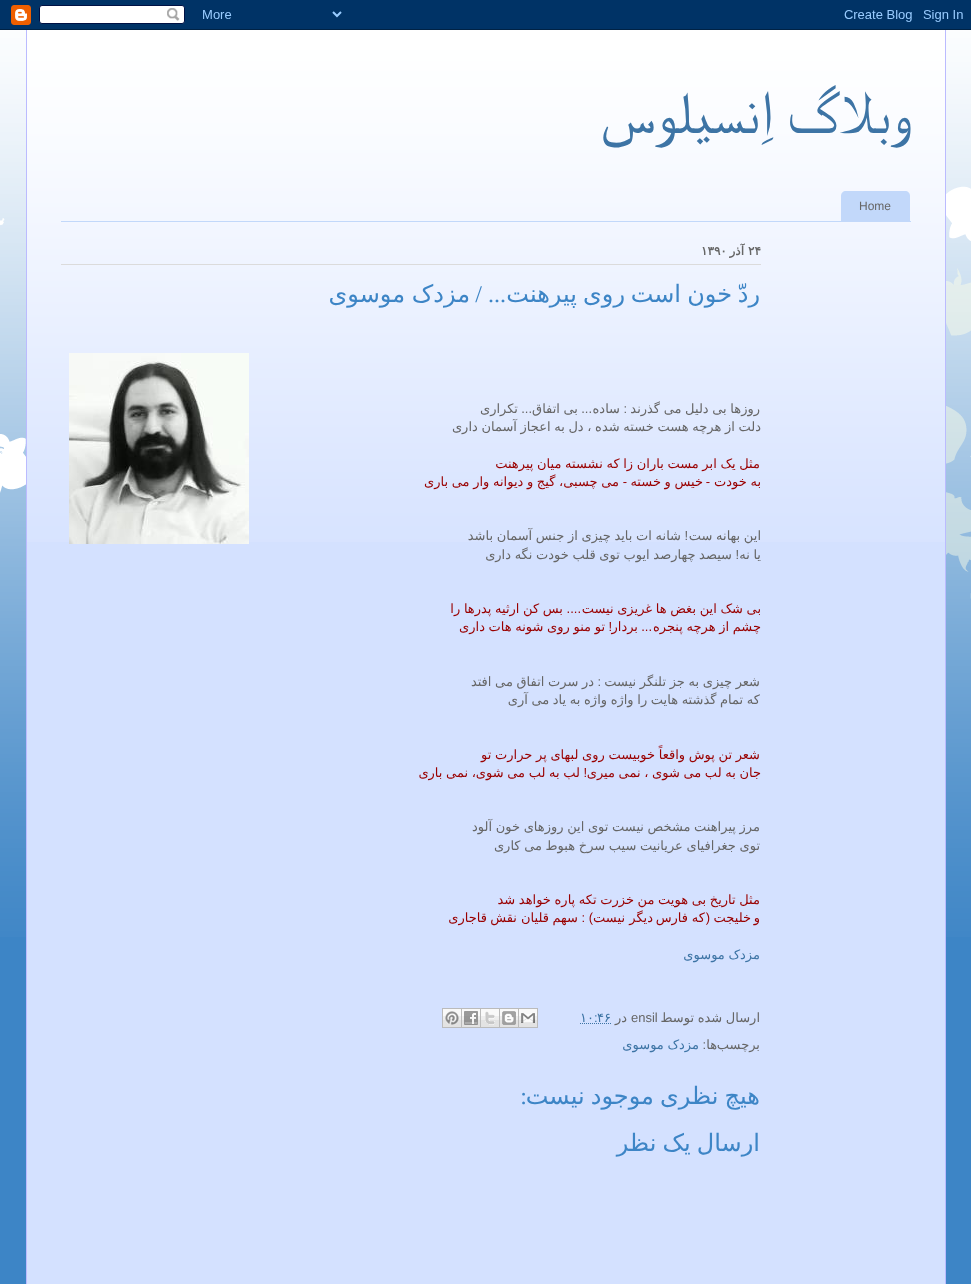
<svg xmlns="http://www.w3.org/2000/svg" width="971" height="1284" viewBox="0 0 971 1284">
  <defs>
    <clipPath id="clip1"><rect x="61" y="57" width="850" height="101"/></clipPath>
  </defs>
  <rect width="100%" height="100%" fill="#3d85c6"/>
  <image x="0" y="0" width="971" height="30" href="img1.png"/>
  <image x="0" y="30" width="971" height="907" href="img2.png"/>
  <rect x="27" y="37" width="918" height="1247" fill="#d4e1ff"/>
  <image x="27" y="30" width="918" height="512" href="img3.png"/>
  <rect x="945" y="30" width="1" height="1254" fill="#bbbbff"/>
  <rect x="26" y="30" width="1" height="1254" fill="#bbbbff"/>
  <g clip-path="url(#clip1)">
    <text x="910" y="133" font-family="FreeSerif" font-size="60" direction="rtl" fill="#3d74a5">وبلاگ اِنسیلوس</text>
  </g>
  <rect x="61" y="221" width="850" height="1" fill="#c2d8fa"/>
  <path d="M846 191H905C908 191 910 193 910 196V221H841V196C841 193 843 191 846 191Z" fill="#c2d8fa"/>
  <text x="859" y="210" font-family="Liberation Sans" font-size="12" fill="#666666">Home</text>
  <rect x="61" y="264" width="700" height="1" fill="#dbdbdb"/>
  <text x="748" y="255" font-family="DejaVu Sans" font-size="12" font-weight="bold" fill="#666666">۲۴</text>
  <text x="744" y="255" font-family="DejaVu Sans" font-size="12" font-weight="bold" direction="rtl" fill="#666666">آذر</text>
  <text x="701" y="255" font-family="DejaVu Sans" font-size="12" font-weight="bold" fill="#666666">۱۳۹۰</text>
  <text x="760" y="302" font-family="DejaVu Sans" font-size="24" direction="rtl" fill="#3d85c6">ردّ</text>
  <text x="732" y="302" font-family="DejaVu Sans" font-size="24" direction="rtl" fill="#3d85c6">خون</text>
  <text x="681" y="302" font-family="DejaVu Sans" font-size="24" direction="rtl" fill="#3d85c6">است</text>
  <text x="625" y="302" font-family="DejaVu Sans" font-size="24" direction="rtl" fill="#3d85c6">روی</text>
  <text x="577" y="302" font-family="DejaVu Sans" font-size="24" direction="rtl" fill="#3d85c6">پیرهنت</text>
  <text x="506" y="302" font-family="Liberation Serif" font-size="24" direction="rtl" fill="#3d85c6">... /</text>
  <text x="470" y="302" font-family="DejaVu Sans" font-size="24" direction="rtl" fill="#3d85c6">مزدک</text>
  <text x="405" y="302" font-family="DejaVu Sans" font-size="24" direction="rtl" fill="#3d85c6">موسوی</text>
  <text x="760" y="413" word-spacing="-0.5" font-family="DejaVu Sans" font-size="13" direction="rtl" fill="#666666">روزها بی دلیل می گذرند</text>
  <text x="627" y="413" font-family="Liberation Sans" font-size="13" direction="rtl" fill="#666666">:</text>
  <text x="620" y="413" font-family="DejaVu Sans" font-size="13" direction="rtl" fill="#666666">ساده</text>
  <text x="592" y="413" font-family="Liberation Sans" font-size="13" direction="rtl" fill="#666666">...</text>
  <text x="578" y="413" word-spacing="-0.5" font-family="DejaVu Sans" font-size="13" direction="rtl" fill="#666666">بی اتفاق</text>
  <text x="532" y="413" font-family="Liberation Sans" font-size="13" direction="rtl" fill="#666666">...</text>
  <text x="518" y="413" font-family="DejaVu Sans" font-size="13" direction="rtl" fill="#666666">تکراری</text>
  <text x="761" y="431" word-spacing="-0.5" font-family="DejaVu Sans" font-size="13" direction="rtl" fill="#666666">دلت از هرچه هست خسته شده ، دل به اعجاز آسمان داری</text>
  <text x="760" y="468" word-spacing="-0.5" font-family="DejaVu Sans" font-size="13" direction="rtl" fill="#990000">مثل یک ابر مست باران زا که نشسته میان پیرهنت</text>
  <text x="761" y="486" word-spacing="-0.5" font-family="DejaVu Sans" font-size="13" direction="rtl" fill="#990000">به خودت</text>
  <text x="710" y="486" font-family="Liberation Sans" font-size="13" direction="rtl" fill="#990000">-</text>
  <text x="703" y="486" word-spacing="-0.5" font-family="DejaVu Sans" font-size="13" direction="rtl" fill="#990000">خیس و خسته</text>
  <text x="627" y="486" font-family="Liberation Sans" font-size="13" direction="rtl" fill="#990000">-</text>
  <text x="619" y="486" word-spacing="-0.5" font-family="DejaVu Sans" font-size="13" direction="rtl" fill="#990000">می چسبی، گیج و دیوانه وار می باری</text>
  <text x="761" y="540" word-spacing="-0.5" font-family="DejaVu Sans" font-size="13" direction="rtl" fill="#666666">این بهانه ست</text>
  <text x="688" y="540" font-family="Liberation Sans" font-size="13" direction="rtl" fill="#666666">!</text>
  <text x="681" y="540" word-spacing="-0.5" font-family="DejaVu Sans" font-size="13" direction="rtl" fill="#666666">شانه ات باید چیزی از جنس آسمان باشد</text>
  <text x="761" y="559" word-spacing="-0.5" font-family="DejaVu Sans" font-size="13" direction="rtl" fill="#666666">یا نه</text>
  <text x="739" y="559" font-family="Liberation Sans" font-size="13" direction="rtl" fill="#666666">!</text>
  <text x="732" y="559" word-spacing="-0.5" font-family="DejaVu Sans" font-size="13" direction="rtl" fill="#666666">سیصد چهارصد ایوب توی قلب خودت نگه داری</text>
  <text x="761" y="613" word-spacing="-0.5" font-family="DejaVu Sans" font-size="13" direction="rtl" fill="#990000">بی شک این بغض ها غریزی نیست</text>
  <text x="581" y="613" font-family="Liberation Sans" font-size="13" direction="rtl" fill="#990000">....</text>
  <text x="563" y="613" word-spacing="-0.5" font-family="DejaVu Sans" font-size="13" direction="rtl" fill="#990000">بس کن ارثیه پدرها را</text>
  <text x="761" y="631" word-spacing="-0.5" font-family="DejaVu Sans" font-size="13" direction="rtl" fill="#990000">چشم از هرچه پنجره</text>
  <text x="652" y="631" font-family="Liberation Sans" font-size="13" direction="rtl" fill="#990000">...</text>
  <text x="638" y="631" font-family="DejaVu Sans" font-size="13" direction="rtl" fill="#990000">بردار</text>
  <text x="612" y="631" font-family="Liberation Sans" font-size="13" direction="rtl" fill="#990000">!</text>
  <text x="605" y="631" word-spacing="-0.5" font-family="DejaVu Sans" font-size="13" direction="rtl" fill="#990000">تو منو روی شونه هات داری</text>
  <text x="760" y="686" word-spacing="-0.5" font-family="DejaVu Sans" font-size="13" direction="rtl" fill="#666666">شعر چیزی به جز تلنگر نیست</text>
  <text x="601" y="686" font-family="Liberation Sans" font-size="13" direction="rtl" fill="#666666">:</text>
  <text x="594" y="686" word-spacing="-0.5" font-family="DejaVu Sans" font-size="13" direction="rtl" fill="#666666">در سرت اتفاق می افتد</text>
  <text x="760" y="704" word-spacing="-0.5" font-family="DejaVu Sans" font-size="13" direction="rtl" fill="#666666">که تمام گذشته هایت را واژه واژه به یاد می آری</text>
  <text x="760" y="759" word-spacing="-0.5" font-family="DejaVu Sans" font-size="13" direction="rtl" fill="#990000">شعر تن پوش واقعاً خوبیست روی لبهای پر حرارت تو</text>
  <text x="761" y="777" word-spacing="-0.5" font-family="DejaVu Sans" font-size="13" direction="rtl" fill="#990000">جان به لب می شوی ، نمی میری</text>
  <text x="587" y="777" font-family="Liberation Sans" font-size="13" direction="rtl" fill="#990000">!</text>
  <text x="580" y="777" word-spacing="-0.5" font-family="DejaVu Sans" font-size="13" direction="rtl" fill="#990000">لب به لب می شوی، نمی باری</text>
  <text x="760" y="831" word-spacing="-0.5" font-family="DejaVu Sans" font-size="13" direction="rtl" fill="#666666">مرز پیراهنت مشخص نیست توی این روزهای خون آلود</text>
  <text x="760" y="850" word-spacing="-0.5" font-family="DejaVu Sans" font-size="13" direction="rtl" fill="#666666">توی جغرافیای عریانیت سیب سرخ هبوط می کاری</text>
  <text x="760" y="904" word-spacing="-0.5" font-family="DejaVu Sans" font-size="13" direction="rtl" fill="#990000">مثل تاریخ بی هویت من خزرت تکه پاره خواهد شد</text>
  <text x="760" y="922" font-family="DejaVu Sans" font-size="13" direction="rtl" fill="#990000">و</text>
  <text x="751" y="922" font-family="DejaVu Sans" font-size="13" direction="rtl" fill="#990000">خلیجت</text>
  <text x="710" y="922" font-family="Liberation Sans" font-size="13" direction="rtl" fill="#990000">(</text>
  <text x="705" y="922" font-family="DejaVu Sans" font-size="13" direction="rtl" fill="#990000">که</text>
  <text x="688" y="922" font-family="DejaVu Sans" font-size="13" direction="rtl" fill="#990000">فارس</text>
  <text x="653" y="922" font-family="DejaVu Sans" font-size="13" direction="rtl" fill="#990000">دیگر</text>
  <text x="625" y="922" font-family="DejaVu Sans" font-size="13" direction="rtl" fill="#990000">نیست</text>
  <text x="593" y="922" font-family="Liberation Sans" font-size="13" direction="rtl" fill="#990000">) :</text>
  <text x="578" y="922" font-family="DejaVu Sans" font-size="13" direction="rtl" fill="#990000">سهم</text>
  <text x="549" y="922" font-family="DejaVu Sans" font-size="13" direction="rtl" fill="#990000">قلیان</text>
  <text x="517" y="922" font-family="DejaVu Sans" font-size="13" direction="rtl" fill="#990000">نقش</text>
  <text x="487" y="922" font-family="DejaVu Sans" font-size="13" direction="rtl" fill="#990000">قاجاری</text>
  <text x="760" y="959" word-spacing="-0.5" font-family="DejaVu Sans" font-size="13" direction="rtl" fill="#3d74a5">مزدک موسوی</text>
  <image x="69" y="353" width="180" height="191" href="img4.png"/>
  <text x="760" y="1022" word-spacing="-0.5" font-family="DejaVu Sans" font-size="13" direction="rtl" fill="#666666">ارسال شده توسط</text>
  <text x="631" y="1022" font-family="Liberation Sans" font-size="13" fill="#666666">ensil</text>
  <text x="627" y="1022" font-family="DejaVu Sans" font-size="13" direction="rtl" fill="#666666">در</text>
  <path d="M580 1023.5H611.5" fill="none" stroke="#3d74a5" stroke-dasharray="1 1"/>
  <text x="597" y="1022" font-family="DejaVu Sans" font-size="13" fill="#3d74a5">۴۶</text>
  <text x="594" y="1022" font-family="Liberation Sans" font-size="13" fill="#3d74a5">:</text>
  <text x="580" y="1022" font-family="DejaVu Sans" font-size="13" fill="#3d74a5">۱۰</text>
  <image x="519" y="1008" width="19" height="20" href="img5.png"/>
  <image x="499" y="1008" width="20" height="20" href="img6.png"/>
  <image x="480" y="1008" width="19" height="20" href="img7.png"/>
  <image x="461" y="1008" width="19" height="20" href="img8.png"/>
  <image x="442" y="1008" width="19" height="20" href="img9.png"/>
  <text x="760" y="1049" font-family="DejaVu Sans" font-size="13" direction="rtl" fill="#666666">برچسب</text>
  <text x="717" y="1049" font-family="DejaVu Sans" font-size="13" direction="rtl" fill="#666666">ها</text>
  <text x="706" y="1049" font-family="Liberation Sans" font-size="13" direction="rtl" fill="#666666">:</text>
  <text x="699" y="1049" word-spacing="-0.5" font-family="DejaVu Sans" font-size="13" direction="rtl" fill="#3d74a5">مزدک موسوی</text>
  <text x="760" y="1104" word-spacing="-1.5" font-family="DejaVu Sans" font-size="24" direction="rtl" fill="#3d85c6">هیچ نظری موجود نیست</text>
  <text x="527" y="1104" font-family="Liberation Serif" font-size="24" direction="rtl" fill="#3d85c6">:</text>
  <text x="760" y="1151" word-spacing="-1.5" font-family="DejaVu Sans" font-size="24" direction="rtl" fill="#3d85c6">ارسال یک نظر</text>
</svg>
